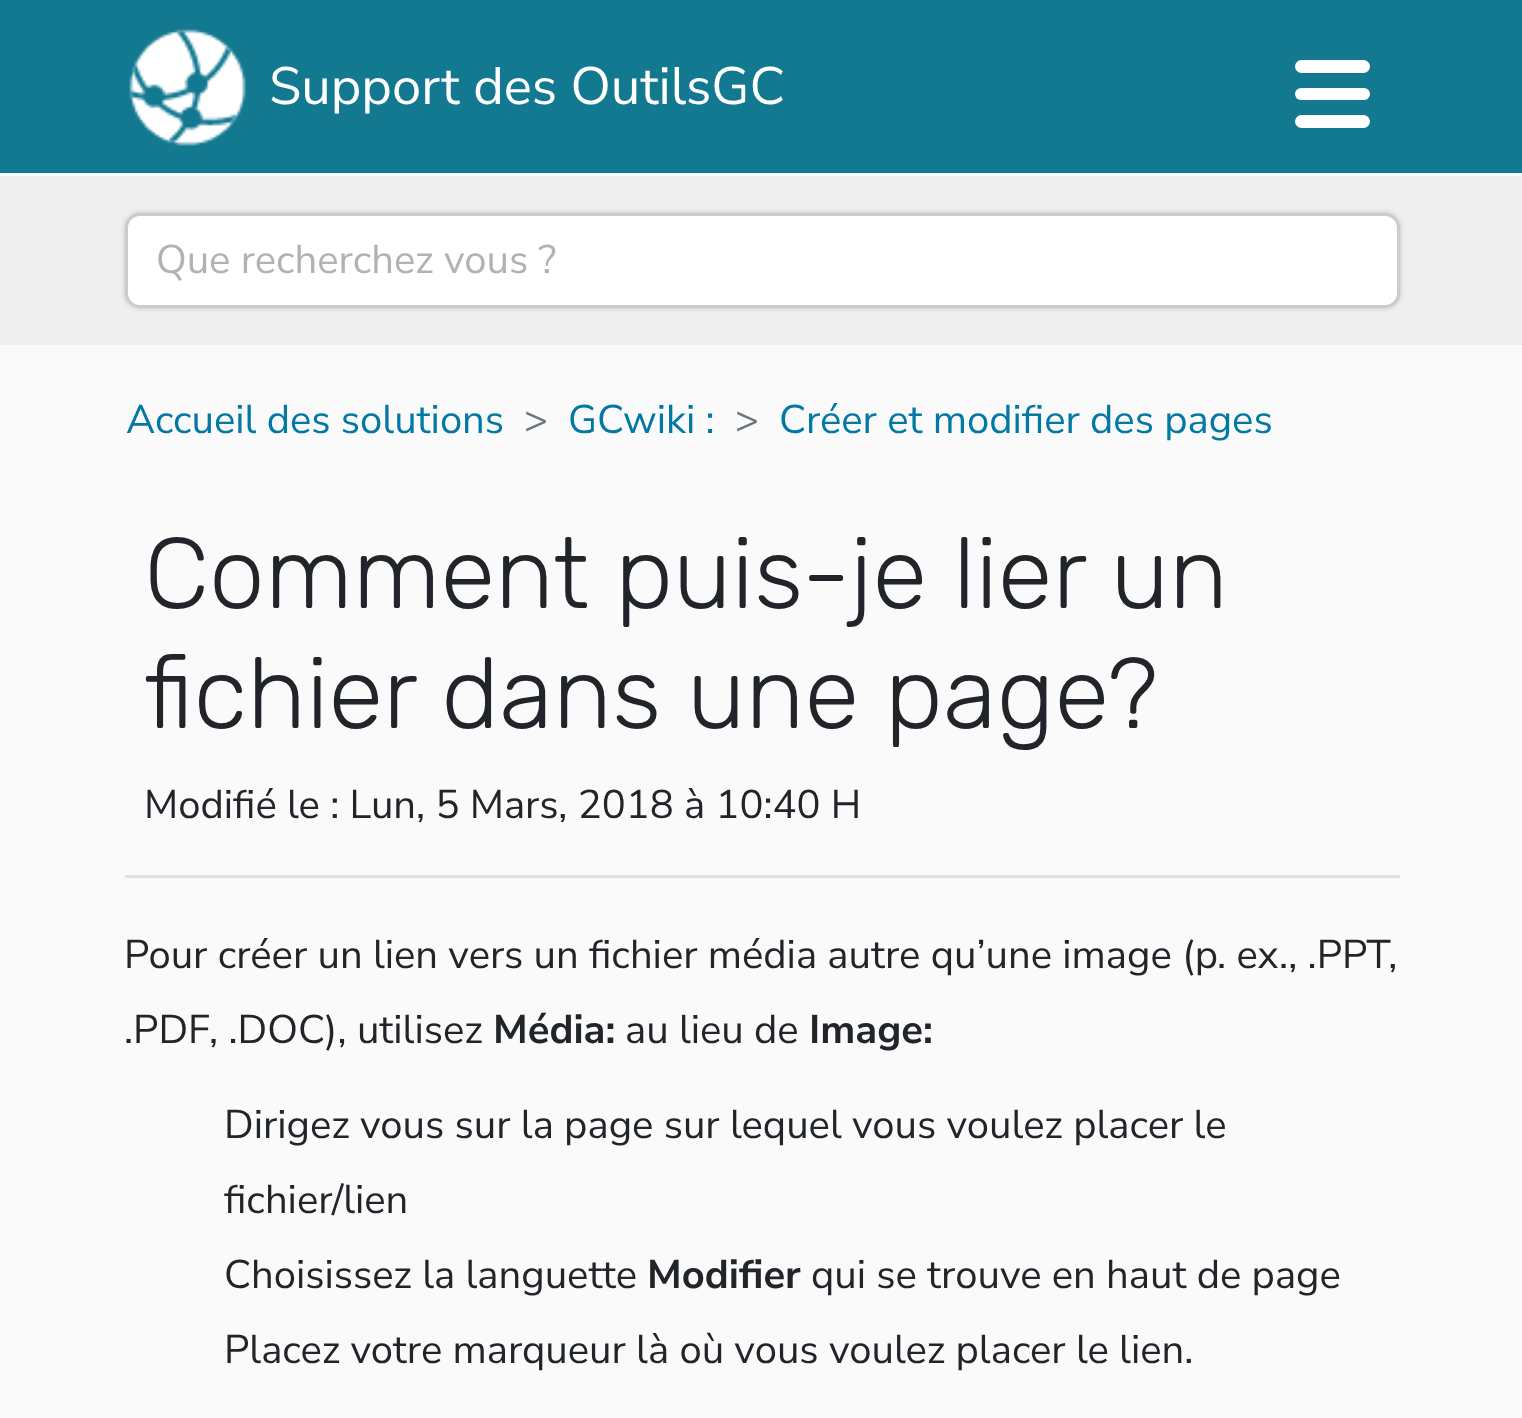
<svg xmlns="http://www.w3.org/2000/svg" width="1522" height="1418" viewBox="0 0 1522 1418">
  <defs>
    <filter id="blur1" x="-50%" y="-200%" width="200%" height="500%"><feGaussianBlur stdDeviation="2.5"/></filter>
  </defs>
  <rect width="100%" height="100%" fill="#fafafa"/>
  <rect x="0" y="0" width="1522" height="173" fill="#137991"/>
  <rect x="0" y="173" width="1522" height="3" fill="#ffffff"/>
  <image x="129" y="29" width="117" height="117" href="img1.png"/>
  <text x="269" y="104" font-family="Nunito Sans" font-size="52.5" fill="#ffffff">Support des OutilsGC</text>
  <rect x="1295" y="60" width="75" height="13" rx="6.5" fill="#ffffff"/>
  <rect x="1295" y="88" width="75" height="12" rx="6" fill="#ffffff"/>
  <rect x="1295" y="115" width="75" height="13" rx="6.5" fill="#ffffff"/>
  <rect x="0" y="176" width="1522" height="169" fill="#efefef"/>
  <rect x="125" y="213" width="1275" height="95" rx="15" fill="#000000" fill-opacity="0.2" filter="url(#blur1)"/>
  <rect x="126.5" y="214.5" width="1272" height="92" rx="13.5" fill="#ffffff" stroke="#cccccc" stroke-width="3"/>
  <text x="156" y="273" font-family="Nunito Sans" font-size="40" fill="#b2b2b2">Que recherchez vous ?</text>
  <text x="126" y="433" font-family="Nunito Sans" font-size="40" fill="#0278a4">Accueil des solutions</text>
  <text x="524" y="433" font-family="Nunito Sans" font-size="40" fill="#6c757d">&gt;</text>
  <text x="568" y="433" font-family="Nunito Sans" font-size="40" fill="#0278a4">GCwiki :</text>
  <text x="735" y="433" font-family="Nunito Sans" font-size="40" fill="#6c757d">&gt;</text>
  <text x="779" y="433" font-family="Nunito Sans" font-size="40" fill="#0278a4">Créer et modifier des pages</text>
  <text x="144" y="608" font-family="Rubik" font-size="100" font-weight="300" fill="#212529">Comment puis-je lier un</text>
  <text x="144" y="728" font-family="Rubik" font-size="100" font-weight="300" fill="#212529">fichier dans une page?</text>
  <text x="144" y="818" font-family="Nunito Sans" font-size="40" fill="#212529">Modifié le : Lun, 5 Mars, 2018 à 10:40 H</text>
  <rect x="125" y="875" width="1275" height="3" fill="#e1e1e1"/>
  <text x="124" y="968" font-family="Nunito Sans" font-size="40" fill="#212529">Pour créer un lien vers un fichier média autre qu’une image (p. ex., .PPT,</text>
  <text x="124" y="1043" font-family="Nunito Sans" font-size="40" fill="#212529">.PDF</text>
  <text x="209" y="1043" font-family="Nunito Sans" font-size="40" fill="#212529">, .DOC), utilisez</text>
  <text x="493" y="1043" font-family="Nunito Sans" font-size="40" font-weight="bold" fill="#212529">Média:</text>
  <text x="625" y="1043" font-family="Nunito Sans" font-size="40" fill="#212529">au lieu de</text>
  <text x="809" y="1043" font-family="Nunito Sans" font-size="40" font-weight="bold" fill="#212529">Image:</text>
  <text x="224" y="1138" font-family="Nunito Sans" font-size="40" fill="#212529">Dirigez vous sur la page sur lequel vous voulez placer le</text>
  <text x="224" y="1213" font-family="Nunito Sans" font-size="40" fill="#212529">fichier/lien</text>
  <text x="224" y="1288" font-family="Nunito Sans" font-size="40" fill="#212529">Choisissez la languette</text>
  <text x="647" y="1288" font-family="Nunito Sans" font-size="40" font-weight="bold" fill="#212529">Modifier</text>
  <text x="811" y="1288" font-family="Nunito Sans" font-size="40" fill="#212529">qui se trouve en haut de page</text>
  <text x="224" y="1363" font-family="Nunito Sans" font-size="40" fill="#212529">Placez votre marqueur là où vous voulez placer le lien.</text>
</svg>
